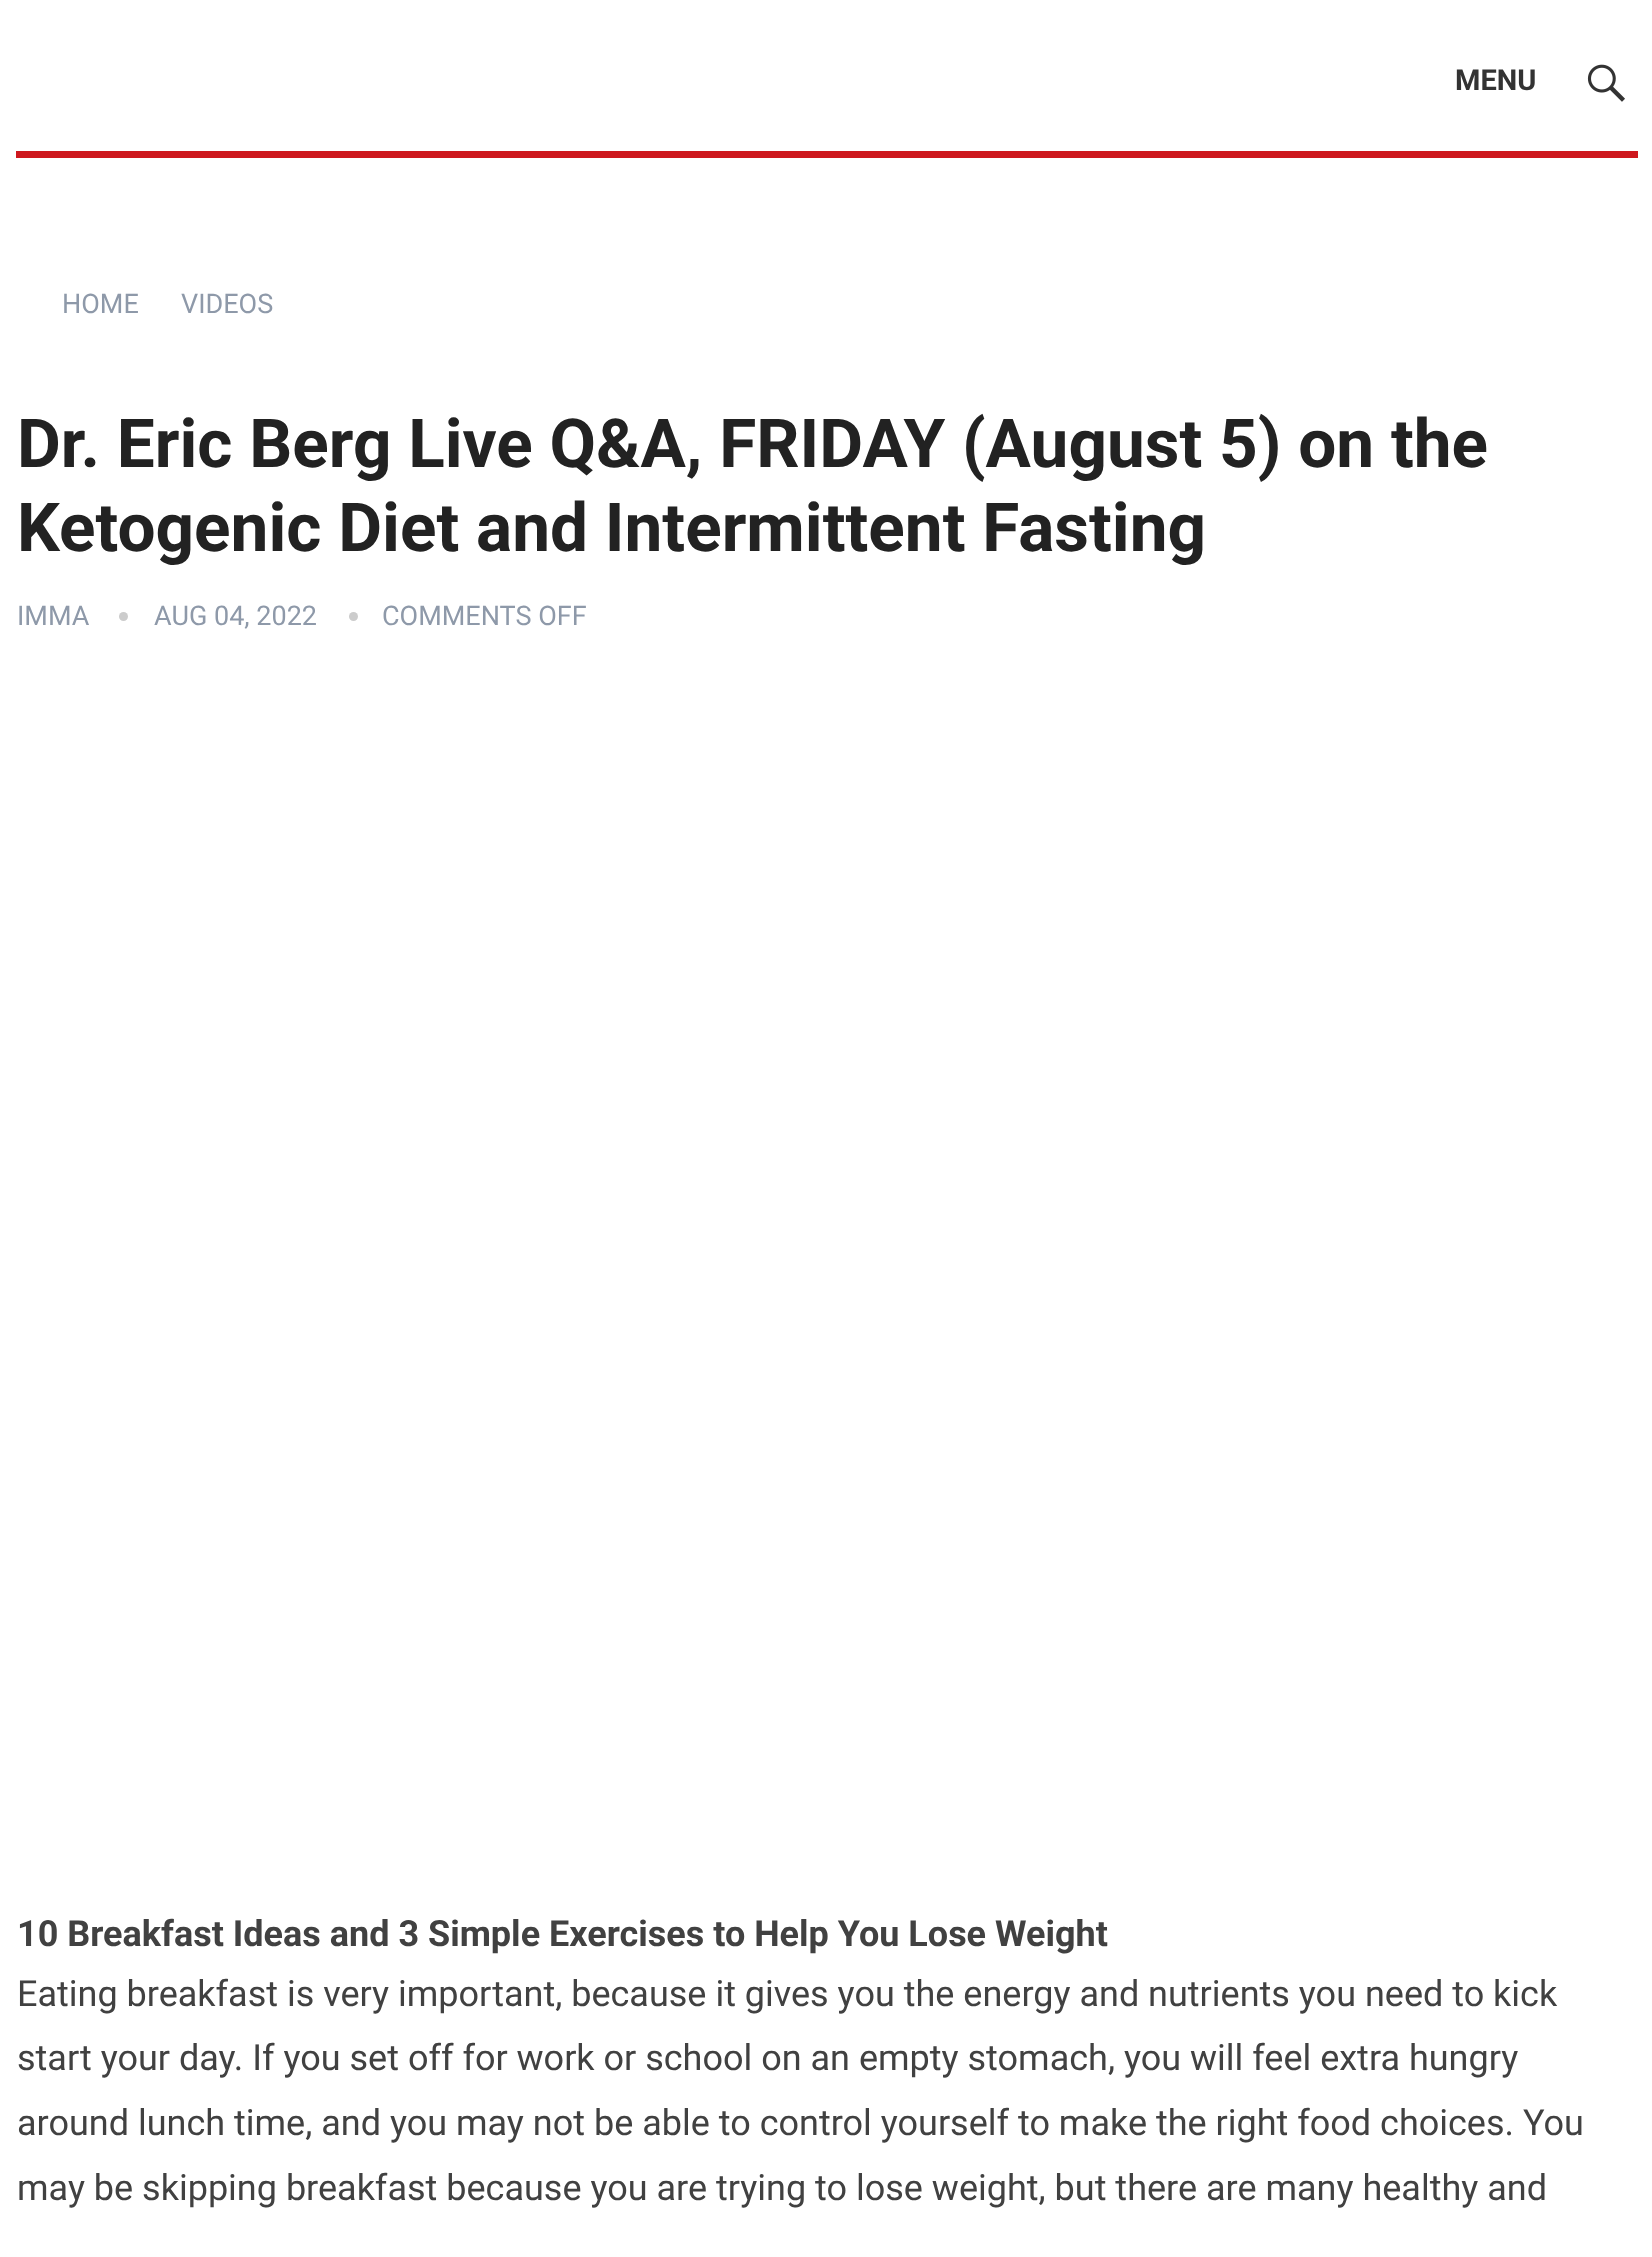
<svg xmlns="http://www.w3.org/2000/svg" width="1652" height="2257" viewBox="0 0 1652 2257">
  <rect width="100%" height="100%" fill="#ffffff"/>
  <text x="1455" y="90" font-family="Roboto" font-size="29" font-weight="bold" fill="#333333">MENU</text>
  <image x="1587" y="64" width="38" height="38" href="img1.png"/>
  <rect x="16" y="151" width="1622" height="7" fill="#ce181e"/>
  <text x="62" y="313" font-family="Roboto" font-size="27" fill="#8e99a9">HOME</text>
  <text x="181" y="313" font-family="Roboto" font-size="27" fill="#8e99a9">VIDEOS</text>
  <text x="17" y="467" font-family="Roboto" font-size="67.5" font-weight="bold" fill="#222222">Dr. Eric Berg Live Q&amp;A, FRIDAY (August 5) on the</text>
  <text x="17" y="551" font-family="Roboto" font-size="67.5" font-weight="bold" fill="#222222">Ketogenic Diet and Intermittent Fasting</text>
  <text x="17" y="625" font-family="Roboto" font-size="27" fill="#8e99a9">IMMA</text>
  <circle cx="123.5" cy="616.5" r="4.5" fill="#cccccc"/>
  <text x="154" y="625" font-family="Roboto" font-size="27" fill="#8e99a9">AUG 04, 2022</text>
  <circle cx="353.5" cy="616.5" r="4.5" fill="#cccccc"/>
  <text x="382" y="625" font-family="Roboto" font-size="27" fill="#8e99a9">COMMENTS OFF</text>
  <text x="17" y="1946" font-family="Roboto" font-size="36" font-weight="bold" fill="#414141">10 Breakfast Ideas and 3 Simple Exercises to Help You Lose Weight</text>
  <text x="17" y="2006" font-family="Roboto" font-size="36" fill="#414141">Eating breakfast is very important, because it gives you the energy and nutrients you need to kick</text>
  <text x="17" y="2070" font-family="Roboto" font-size="36" fill="#414141">start your day. If you set off for work or school on an empty stomach, you will feel extra hungry</text>
  <text x="17" y="2135" font-family="Roboto" font-size="36" fill="#414141">around lunch time, and you may not be able to control yourself to make the right food choices. You</text>
  <text x="17" y="2200" font-family="Roboto" font-size="36" fill="#414141">may be skipping breakfast because you are trying to lose weight, but there are many healthy and</text>
</svg>
